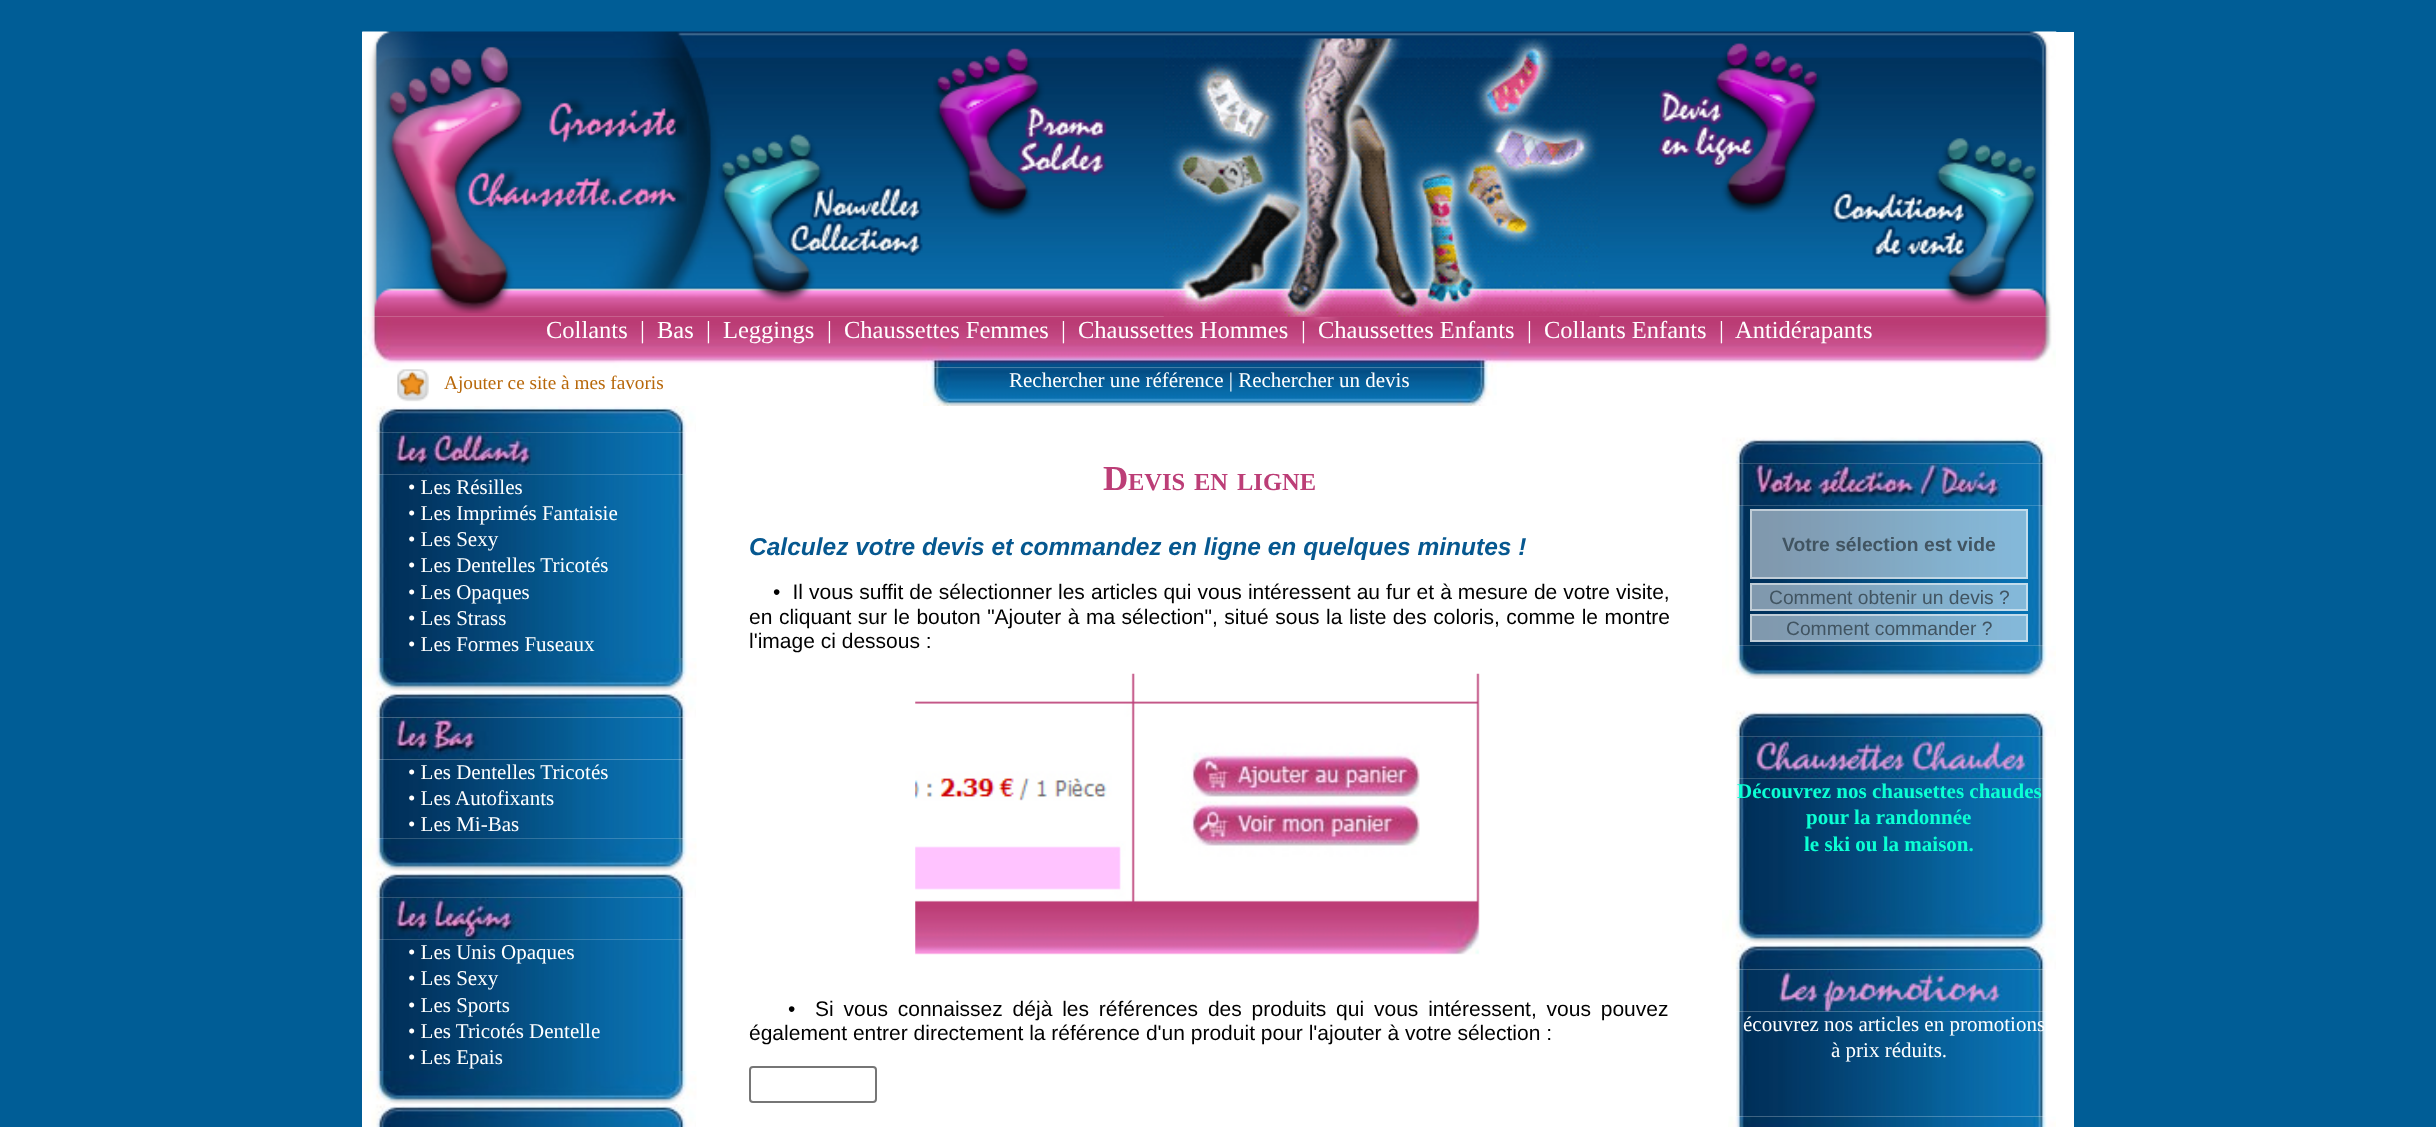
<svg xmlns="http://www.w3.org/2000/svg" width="2436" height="1127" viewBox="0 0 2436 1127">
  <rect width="100%" height="100%" fill="#005d96"/>
  <rect x="362" y="32" width="1712" height="1095" fill="#ffffff"/>
  <image x="362" y="31" width="1695" height="286" href="img1.png"/>
  <image x="384" y="46" width="303" height="268" href="img2.png"/>
  <image x="718" y="134" width="205" height="169" href="img3.png"/>
  <image x="933" y="47" width="174" height="173" href="img4.png"/>
  <image x="362" y="316" width="1694" height="52" href="img8.png"/>
  <image x="1163" y="38" width="437" height="279" href="img5.png"/>
  <image x="1657" y="42" width="165" height="173" href="img6.png"/>
  <image x="1830" y="138" width="211" height="169" href="img7.png"/>
  <text x="546" y="338" font-family="Liberation Serif" font-size="24.5" fill="#ffffff">Collants</text>
  <text x="640" y="338" font-family="Liberation Serif" font-size="24.5" fill="#ffffff">|</text>
  <text x="657" y="338" font-family="Liberation Serif" font-size="24.5" fill="#ffffff">Bas</text>
  <text x="706" y="338" font-family="Liberation Serif" font-size="24.5" fill="#ffffff">|</text>
  <text x="723" y="338" font-family="Liberation Serif" font-size="24.5" fill="#ffffff">Leggings</text>
  <text x="827" y="338" font-family="Liberation Serif" font-size="24.5" fill="#ffffff">|</text>
  <text x="844" y="338" font-family="Liberation Serif" font-size="24.5" fill="#ffffff">Chaussettes Femmes</text>
  <text x="1061" y="338" font-family="Liberation Serif" font-size="24.5" fill="#ffffff">|</text>
  <text x="1078" y="338" font-family="Liberation Serif" font-size="24.5" fill="#ffffff">Chaussettes Hommes</text>
  <text x="1301" y="338" font-family="Liberation Serif" font-size="24.5" fill="#ffffff">|</text>
  <text x="1318" y="338" font-family="Liberation Serif" font-size="24.5" fill="#ffffff">Chaussettes Enfants</text>
  <text x="1527" y="338" font-family="Liberation Serif" font-size="24.5" fill="#ffffff">|</text>
  <text x="1544" y="338" font-family="Liberation Serif" font-size="24.5" fill="#ffffff">Collants Enfants</text>
  <text x="1719" y="338" font-family="Liberation Serif" font-size="24.5" fill="#ffffff">|</text>
  <text x="1735" y="338" font-family="Liberation Serif" font-size="24.5" fill="#ffffff">Antidérapants</text>
  <image x="923" y="367" width="574" height="39" href="img9.png"/>
  <image x="397" y="369" width="32" height="33" href="img10.png"/>
  <text x="444" y="389" font-family="Liberation Serif" font-size="19.25" fill="#b8680a">Ajouter ce site à mes favoris</text>
  <text x="1009" y="387" font-family="Liberation Serif" font-size="21" fill="#ffffff">Rechercher une référence | Rechercher un devis</text>
  <image x="371" y="406" width="325" height="27" href="img11.png"/>
  <image x="376" y="432" width="310" height="43" href="img12.png"/>
  <image x="376" y="474" width="311" height="184" href="img13.png"/>
  <text x="408" y="494" font-family="Liberation Serif" font-size="21" fill="#ffffff">• Les Résilles</text>
  <text x="408" y="520" font-family="Liberation Serif" font-size="21" fill="#ffffff">• Les Imprimés Fantaisie</text>
  <text x="408" y="546" font-family="Liberation Serif" font-size="21" fill="#ffffff">• Les Sexy</text>
  <text x="408" y="572" font-family="Liberation Serif" font-size="21" fill="#ffffff">• Les Dentelles Tricotés</text>
  <text x="408" y="599" font-family="Liberation Serif" font-size="21" fill="#ffffff">• Les Opaques</text>
  <text x="408" y="625" font-family="Liberation Serif" font-size="21" fill="#ffffff">• Les Strass</text>
  <text x="408" y="651" font-family="Liberation Serif" font-size="21" fill="#ffffff">• Les Formes Fuseaux</text>
  <image x="363" y="658" width="334" height="33" href="img14.png"/>
  <image x="371" y="691" width="325" height="27" href="img15.png"/>
  <image x="376" y="717" width="310" height="43" href="img16.png"/>
  <image x="376" y="759" width="311" height="80" href="img17.png"/>
  <text x="408" y="779" font-family="Liberation Serif" font-size="21" fill="#ffffff">• Les Dentelles Tricotés</text>
  <text x="408" y="805" font-family="Liberation Serif" font-size="21" fill="#ffffff">• Les Autofixants</text>
  <text x="408" y="831" font-family="Liberation Serif" font-size="21" fill="#ffffff">• Les Mi-Bas</text>
  <image x="363" y="838" width="334" height="34" href="img18.png"/>
  <image x="371" y="871" width="325" height="27" href="img19.png"/>
  <image x="376" y="897" width="310" height="43" href="img20.png"/>
  <image x="376" y="939" width="311" height="132" href="img21.png"/>
  <text x="408" y="959" font-family="Liberation Serif" font-size="21" fill="#ffffff">• Les Unis Opaques</text>
  <text x="408" y="985" font-family="Liberation Serif" font-size="21" fill="#ffffff">• Les Sexy</text>
  <text x="408" y="1012" font-family="Liberation Serif" font-size="21" fill="#ffffff">• Les Sports</text>
  <text x="408" y="1038" font-family="Liberation Serif" font-size="21" fill="#ffffff">• Les Tricotés Dentelle</text>
  <text x="408" y="1064" font-family="Liberation Serif" font-size="21" fill="#ffffff">• Les Epais</text>
  <image x="363" y="1071" width="334" height="33" href="img14.png"/>
  <image x="371" y="1104" width="325" height="23" href="img22.png"/>
  <text x="1103" y="490" font-family="Liberation Serif" font-size="35" font-weight="bold" fill="#bc3e77">D</text>
  <text x="1128" y="490" font-family="Liberation Serif" font-size="24.5" font-weight="bold" fill="#bc3e77">EVIS</text>
  <text x="1194" y="490" font-family="Liberation Serif" font-size="24.5" font-weight="bold" fill="#bc3e77">EN</text>
  <text x="1237" y="490" font-family="Liberation Serif" font-size="24.5" font-weight="bold" fill="#bc3e77">LIGNE</text>
  <text x="749" y="555" font-family="Liberation Sans" font-size="24.5" font-weight="bold" font-style="italic" fill="#065890">Calculez votre devis et commandez en ligne en quelques minutes !</text>
  <text x="773" y="599" word-spacing="0.2" font-family="Liberation Sans" font-size="21" fill="#000000" xml:space="preserve">•  Il vous suffit de sélectionner les articles qui vous intéressent au fur et à mesure de votre visite,</text>
  <text x="749" y="624" word-spacing="0.7" font-family="Liberation Sans" font-size="21" fill="#000000">en cliquant sur le bouton "Ajouter à ma sélection", situé sous la liste des coloris, comme le montre</text>
  <text x="749" y="648" font-family="Liberation Sans" font-size="21" fill="#000000">l'image ci dessous :</text>
  <image x="915" y="673" width="565" height="282" href="img23.png"/>
  <text x="788" y="1016" word-spacing="4" font-family="Liberation Sans" font-size="21" fill="#000000" xml:space="preserve">•  Si vous connaissez déjà les références des produits qui vous intéressent, vous pouvez</text>
  <text x="749" y="1040" font-family="Liberation Sans" font-size="21" fill="#000000">également entrer directement la référence d'un produit pour l'ajouter à votre sélection :</text>
  <rect x="750" y="1067" width="126" height="35" rx="3" fill="none" stroke="#767676" stroke-width="2"/>
  <image x="1722" y="437" width="334" height="27" href="img24.png"/>
  <image x="1722" y="463" width="334" height="43" href="img25.png"/>
  <image x="1722" y="505" width="334" height="141" href="img26.png"/>
  <rect x="1750" y="509" width="278" height="70" fill="#ffffff" fill-opacity="0.5"/>
  <rect x="1751" y="510" width="276" height="68" fill="none" stroke="#ffffff" stroke-opacity="0.5" stroke-width="2"/>
  <text x="1782" y="551" font-family="Liberation Sans" font-size="19.25" font-weight="bold" fill="#415461">Votre sélection est vide</text>
  <rect x="1750" y="583" width="278" height="28" fill="#ffffff" fill-opacity="0.5"/>
  <rect x="1751" y="584" width="276" height="26" fill="none" stroke="#ffffff" stroke-opacity="0.5" stroke-width="2"/>
  <text x="1769" y="604" font-family="Liberation Sans" font-size="19.25" fill="#415461">Comment obtenir un devis ?</text>
  <rect x="1750" y="614" width="278" height="28" fill="#ffffff" fill-opacity="0.5"/>
  <rect x="1751" y="615" width="276" height="26" fill="none" stroke="#ffffff" stroke-opacity="0.5" stroke-width="2"/>
  <text x="1786" y="635" font-family="Liberation Sans" font-size="19.25" fill="#415461">Comment commander ?</text>
  <image x="1722" y="645" width="334" height="34" href="img27.png"/>
  <image x="1731" y="710" width="325" height="27" href="img28.png"/>
  <image x="1736" y="736" width="310" height="43" href="img29.png"/>
  <image x="1736" y="778" width="310" height="132" href="img30.png"/>
  <text x="1737" y="798" font-family="Liberation Serif" font-size="21" font-weight="bold" fill="#0bffd4">Découvrez nos chausettes chaudes</text>
  <text x="1806" y="824" font-family="Liberation Serif" font-size="21" font-weight="bold" fill="#0bffd4">pour la randonnée</text>
  <text x="1804" y="851" font-family="Liberation Serif" font-size="21" font-weight="bold" fill="#0bffd4">le ski ou la maison.</text>
  <image x="1722" y="910" width="334" height="33" href="img31.png"/>
  <image x="1731" y="943" width="325" height="27" href="img32.png"/>
  <image x="1736" y="969" width="310" height="43" href="img33.png"/>
  <image x="1736" y="1011" width="310" height="106" href="img34.png"/>
  <text x="1743" y="1031" font-family="Liberation Serif" font-size="21" fill="#ffffff">écouvrez nos articles en promotions</text>
  <text x="1831" y="1057" font-family="Liberation Serif" font-size="21" fill="#ffffff">à prix réduits.</text>
  <image x="1728" y="1116" width="328" height="11" href="img35.png"/>
</svg>
